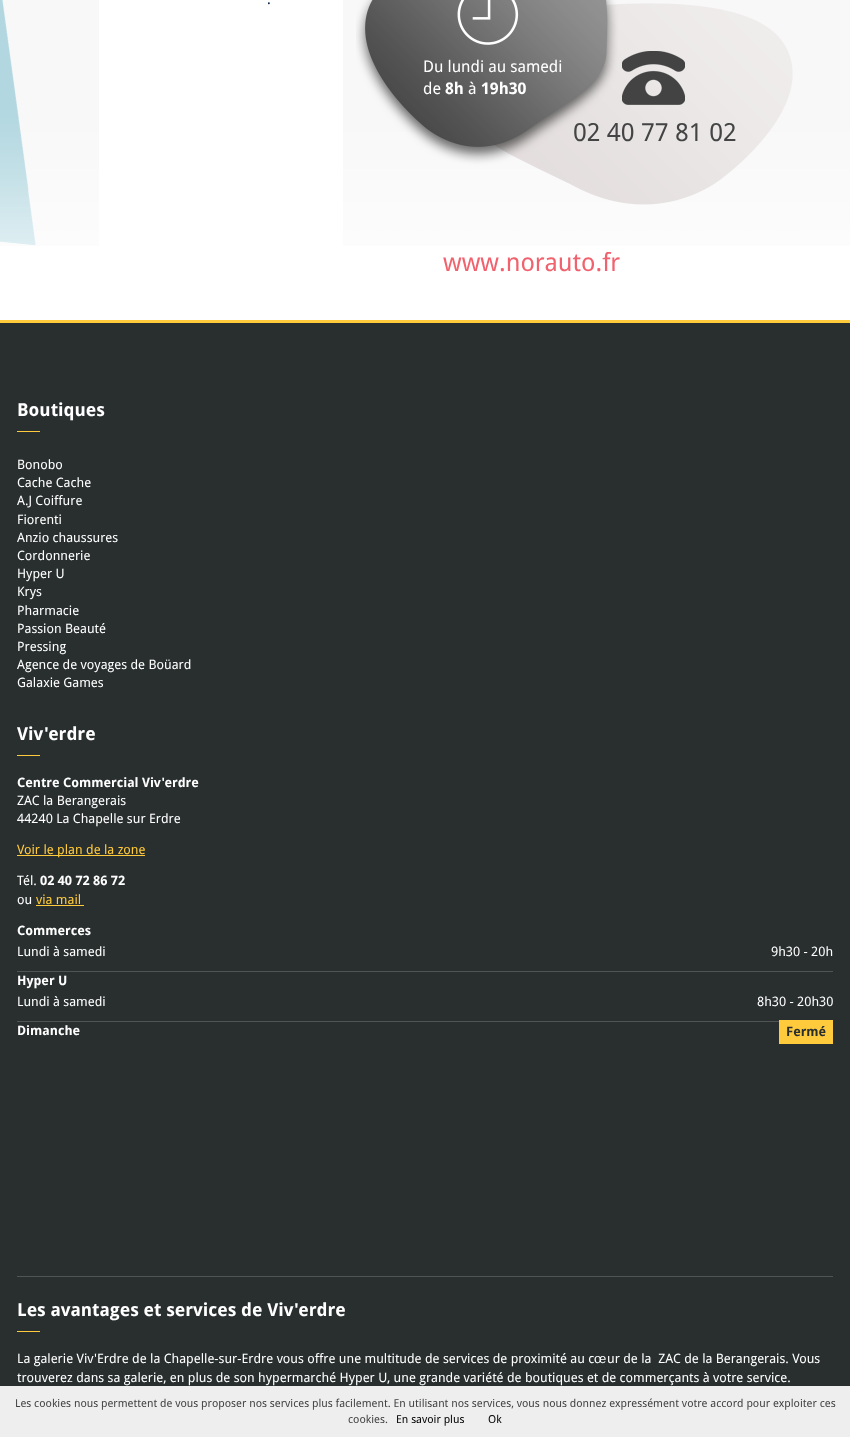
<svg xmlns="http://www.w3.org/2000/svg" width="850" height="1437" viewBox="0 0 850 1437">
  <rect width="100%" height="100%" fill="#ffffff"/>
  <image x="0" y="0" width="850" height="246" href="img1.png"/>
  <rect x="99" y="0" width="244" height="246" fill="#ffffff"/>
  <text x="267" y="4" font-family="Droid Sans" font-size="14" fill="#002140">.</text>
  <image x="356" y="0" width="437" height="205" href="img2.png"/>
  <text x="423" y="72" font-family="Droid Sans" font-size="16" fill="#ffffff">Du lundi au samedi</text>
  <text x="423" y="94" font-family="Droid Sans" font-size="16" fill="#ffffff">de</text>
  <text x="445" y="94" font-family="Droid Sans" font-size="16" font-weight="bold" fill="#ffffff">8h</text>
  <text x="468" y="94" font-family="Droid Sans" font-size="16" fill="#ffffff">à</text>
  <text x="481" y="94" font-family="Droid Sans" font-size="16" font-weight="bold" fill="#ffffff">19h30</text>
  <text x="573" y="141" font-family="Droid Sans" font-size="25" fill="#444444">02 40 77 81 02</text>
  <text x="443" y="271" font-family="Droid Sans" font-size="25" fill="#f0626e">www.norauto.fr</text>
  <rect x="0" y="323" width="850" height="1063" fill="#292f2f"/>
  <rect x="0" y="320" width="850" height="3" fill="#ffca3c"/>
  <rect x="17" y="431" width="23" height="1" fill="#ffca3c"/>
  <text x="17" y="416" font-family="Droid Sans" font-size="18" font-weight="bold" fill="#ffffff">Boutiques</text>
  <text x="17" y="469" font-family="Droid Sans" font-size="13" fill="#ffffff">Bonobo</text>
  <text x="17" y="487" font-family="Droid Sans" font-size="13" fill="#ffffff">Cache Cache</text>
  <text x="17" y="505" font-family="Droid Sans" font-size="13" fill="#ffffff">A.J Coiffure</text>
  <text x="17" y="524" font-family="Droid Sans" font-size="13" fill="#ffffff">Fiorenti</text>
  <text x="17" y="542" font-family="Droid Sans" font-size="13" fill="#ffffff">Anzio chaussures</text>
  <text x="17" y="560" font-family="Droid Sans" font-size="13" fill="#ffffff">Cordonnerie</text>
  <text x="17" y="578" font-family="Droid Sans" font-size="13" fill="#ffffff">Hyper U</text>
  <text x="17" y="596" font-family="Droid Sans" font-size="13" fill="#ffffff">Krys</text>
  <text x="17" y="615" font-family="Droid Sans" font-size="13" fill="#ffffff">Pharmacie</text>
  <text x="17" y="633" font-family="Droid Sans" font-size="13" fill="#ffffff">Passion Beauté</text>
  <text x="17" y="651" font-family="Droid Sans" font-size="13" fill="#ffffff">Pressing</text>
  <text x="17" y="669" font-family="Droid Sans" font-size="13" fill="#ffffff">Agence de voyages de Boüard</text>
  <text x="17" y="687" font-family="Droid Sans" font-size="13" fill="#ffffff">Galaxie Games</text>
  <rect x="17" y="755" width="23" height="1" fill="#ffca3c"/>
  <text x="17" y="740" font-family="Droid Sans" font-size="18" font-weight="bold" fill="#ffffff">Viv'erdre</text>
  <text x="17" y="787" font-family="Droid Sans" font-size="13" font-weight="bold" fill="#ffffff">Centre Commercial Viv'erdre</text>
  <text x="17" y="805" font-family="Droid Sans" font-size="13" fill="#ffffff">ZAC la Berangerais</text>
  <text x="17" y="823" font-family="Droid Sans" font-size="13" fill="#ffffff">44240 La Chapelle sur Erdre</text>
  <rect x="17" y="855" width="128" height="1" fill="#ffca3c"/>
  <text x="17" y="854" font-family="Droid Sans" font-size="13" fill="#ffca3c">Voir le plan de la zone</text>
  <text x="17" y="885" font-family="Droid Sans" font-size="13" fill="#ffffff">Tél.</text>
  <text x="40" y="885" font-family="Droid Sans" font-size="13" font-weight="bold" fill="#ffffff">02 40 72 86 72</text>
  <text x="17" y="904" font-family="Droid Sans" font-size="13" fill="#ffffff">ou</text>
  <text x="36" y="904" font-family="Droid Sans" font-size="13" fill="#ffca3c">via mail</text>
  <rect x="36" y="905" width="48" height="1" fill="#ffca3c"/>
  <rect x="17" y="971" width="816" height="1" fill="#505553"/>
  <text x="17" y="935" font-family="Droid Sans" font-size="13" font-weight="bold" fill="#ffffff">Commerces</text>
  <text x="17" y="956" font-family="Droid Sans" font-size="13" fill="#ffffff">Lundi à samedi</text>
  <text x="771" y="956" font-family="Droid Sans" font-size="13" fill="#ffffff">9h30 - 20h</text>
  <rect x="17" y="1021" width="762" height="1" fill="#505553"/>
  <text x="17" y="985" font-family="Droid Sans" font-size="13" font-weight="bold" fill="#ffffff">Hyper U</text>
  <text x="17" y="1006" font-family="Droid Sans" font-size="13" fill="#ffffff">Lundi à samedi</text>
  <text x="757" y="1006" font-family="Droid Sans" font-size="13" fill="#ffffff">8h30 - 20h30</text>
  <text x="17" y="1035" font-family="Droid Sans" font-size="13" font-weight="bold" fill="#ffffff">Dimanche</text>
  <rect x="779" y="1020" width="54" height="24" fill="#ffca3c"/>
  <text x="786" y="1036" font-family="Droid Sans" font-size="13" font-weight="bold" fill="#292f2f">Fermé</text>
  <rect x="17" y="1276" width="816" height="1" fill="#505553"/>
  <rect x="17" y="1331" width="23" height="1" fill="#ffca3c"/>
  <text x="17" y="1316" font-family="Droid Sans" font-size="18" font-weight="bold" fill="#ffffff">Les avantages et services de Viv'erdre</text>
  <text x="17" y="1363" font-family="Droid Sans" font-size="13" fill="#ffffff">La galerie Viv'Erdre de la Chapelle-sur-Erdre vous offre une multitude de services de proximité au c</text>
  <text x="594" y="1363" font-family="Liberation Sans" font-size="13" fill="#ffffff">œ</text>
  <text x="607" y="1363" font-family="Droid Sans" font-size="13" fill="#ffffff" xml:space="preserve">ur de la  ZAC de la Berangerais. Vous</text>
  <text x="17" y="1382" font-family="Droid Sans" font-size="13" fill="#ffffff">trouverez dans sa galerie, en plus de son hypermarché Hyper U, une grande variété de boutiques et de commerçants à votre service.</text>
  <rect x="0" y="1386" width="850" height="51" fill="#eeeeee"/>
  <text x="15" y="1407" font-family="Droid Sans" font-size="11" fill="#444444">Les cookies nous permettent de vous proposer nos services plus facilement. En utilisant nos services, vous nous donnez expressément votre accord pour exploiter ces</text>
  <text x="348" y="1423" font-family="Droid Sans" font-size="11" fill="#444444">cookies.</text>
  <text x="396" y="1423" font-family="Droid Sans" font-size="11" fill="#000000">En savoir plus</text>
  <text x="488" y="1423" font-family="Droid Sans" font-size="11" fill="#000000">Ok</text>
</svg>
